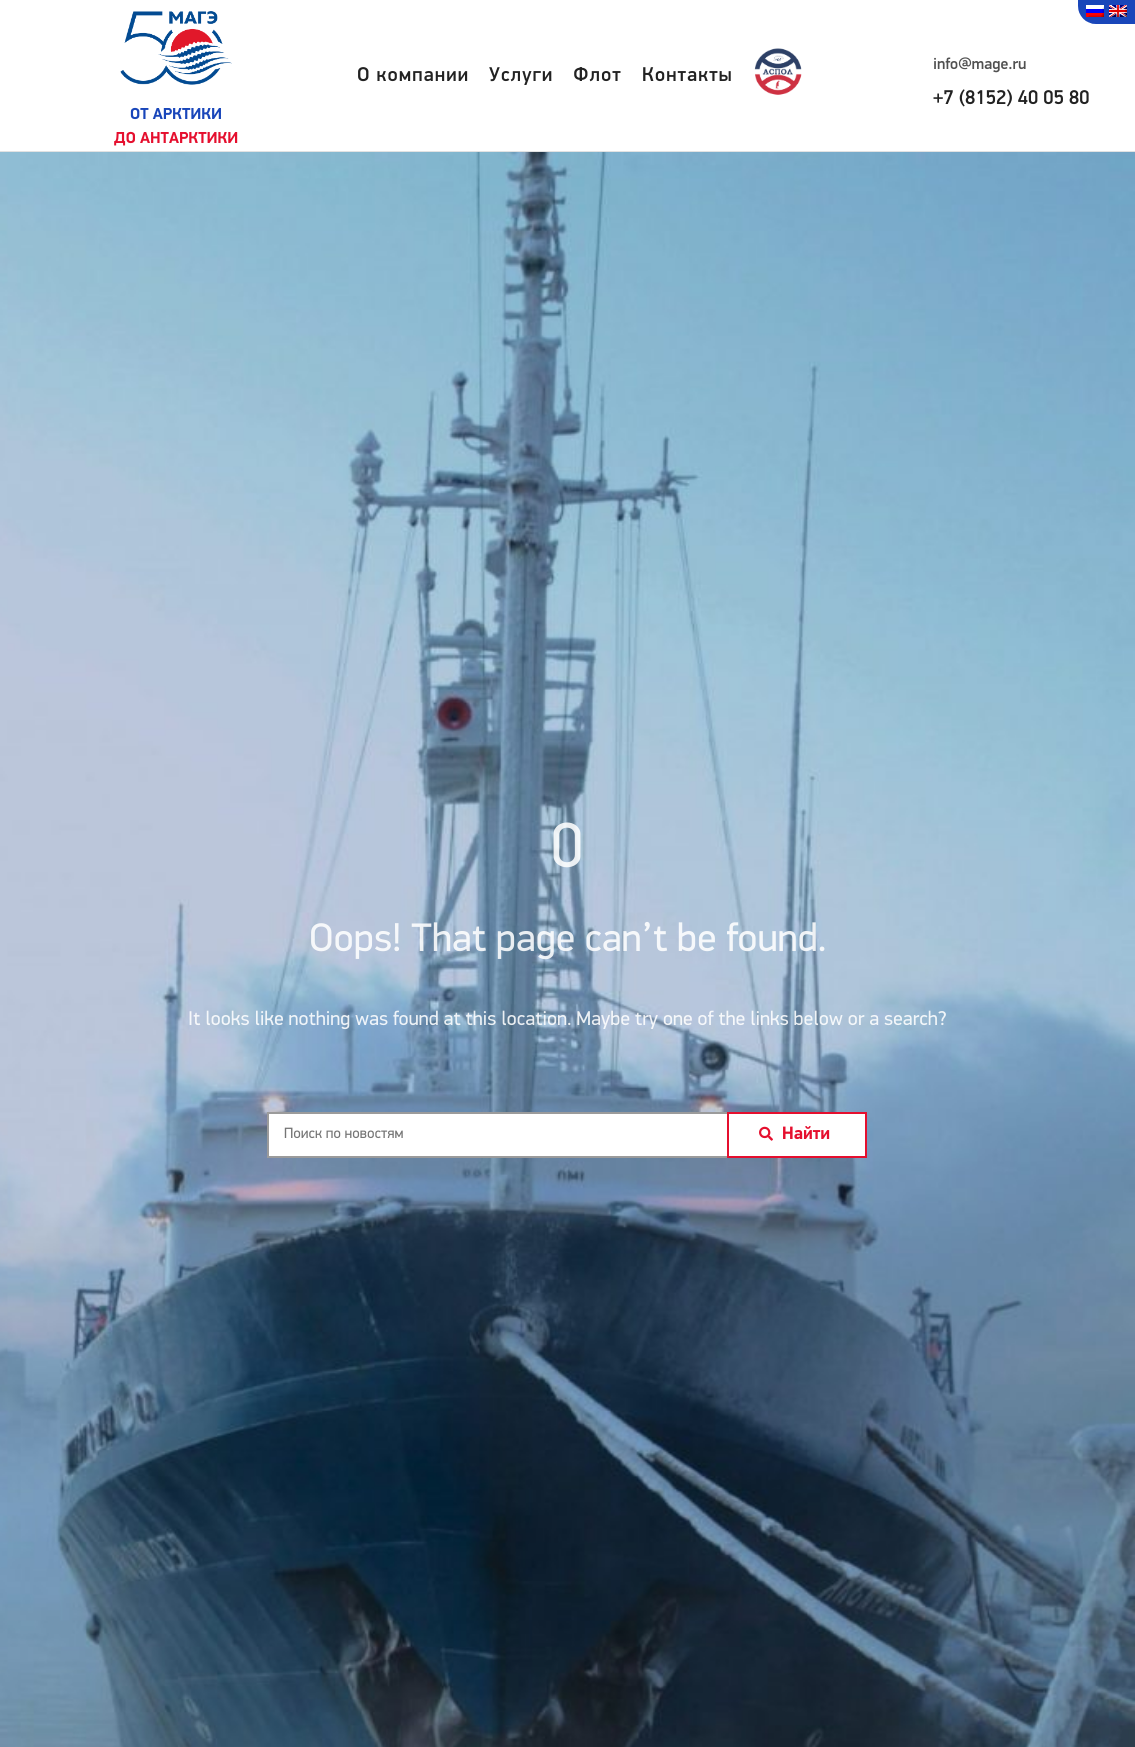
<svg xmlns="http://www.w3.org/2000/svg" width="1135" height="1747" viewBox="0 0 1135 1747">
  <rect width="100%" height="100%" fill="#ffffff"/>
  <rect x="0" y="151" width="1135" height="1" fill="#e2e2e2"/>
  <image x="120" y="11" width="112" height="74" href="img1.png"/>
  <image x="130" y="107" width="91" height="13" href="img2.png"/>
  <image x="114" y="131" width="124" height="15" href="img3.png"/>
  <image x="358" y="67" width="110" height="15" href="img4.png"/>
  <image x="489" y="67" width="63" height="18" href="img5.png"/>
  <image x="574" y="67" width="47" height="15" href="img6.png"/>
  <image x="643" y="67" width="88" height="15" href="img7.png"/>
  <image x="754" y="48" width="48" height="47" href="img8.png"/>
  <image x="934" y="57" width="92" height="16" href="img9.png"/>
  <image x="933" y="89" width="156" height="18" href="img10.png"/>
  <path d="M1078 0H1135V24H1096C1086 24 1078 16 1078 6Z" fill="#1946ba"/>
  <image x="1086" y="5" width="18" height="12" href="img11.png"/>
  <image x="1109" y="5" width="18" height="12" href="img12.png"/>
  <image x="0" y="152" width="1135" height="1595" href="img13.png"/>
  <image x="553" y="822" width="28" height="46" href="img14.png"/>
  <image x="311" y="921" width="514" height="39" href="img15.png"/>
  <image x="189" y="1010" width="757" height="20" href="img16.png"/>
  <rect x="268" y="1113" width="598" height="44" fill="#ffffff" stroke="#9b9b9b" stroke-width="2"/>
  <image x="284" y="1127" width="119" height="12" href="img17.png"/>
  <rect x="728" y="1113" width="138" height="44" fill="none" stroke="#e50f2e" stroke-width="2"/>
  <image x="759" y="1126" width="14" height="15" href="img18.png"/>
  <image x="783" y="1126" width="47" height="14" href="img19.png"/>
</svg>
